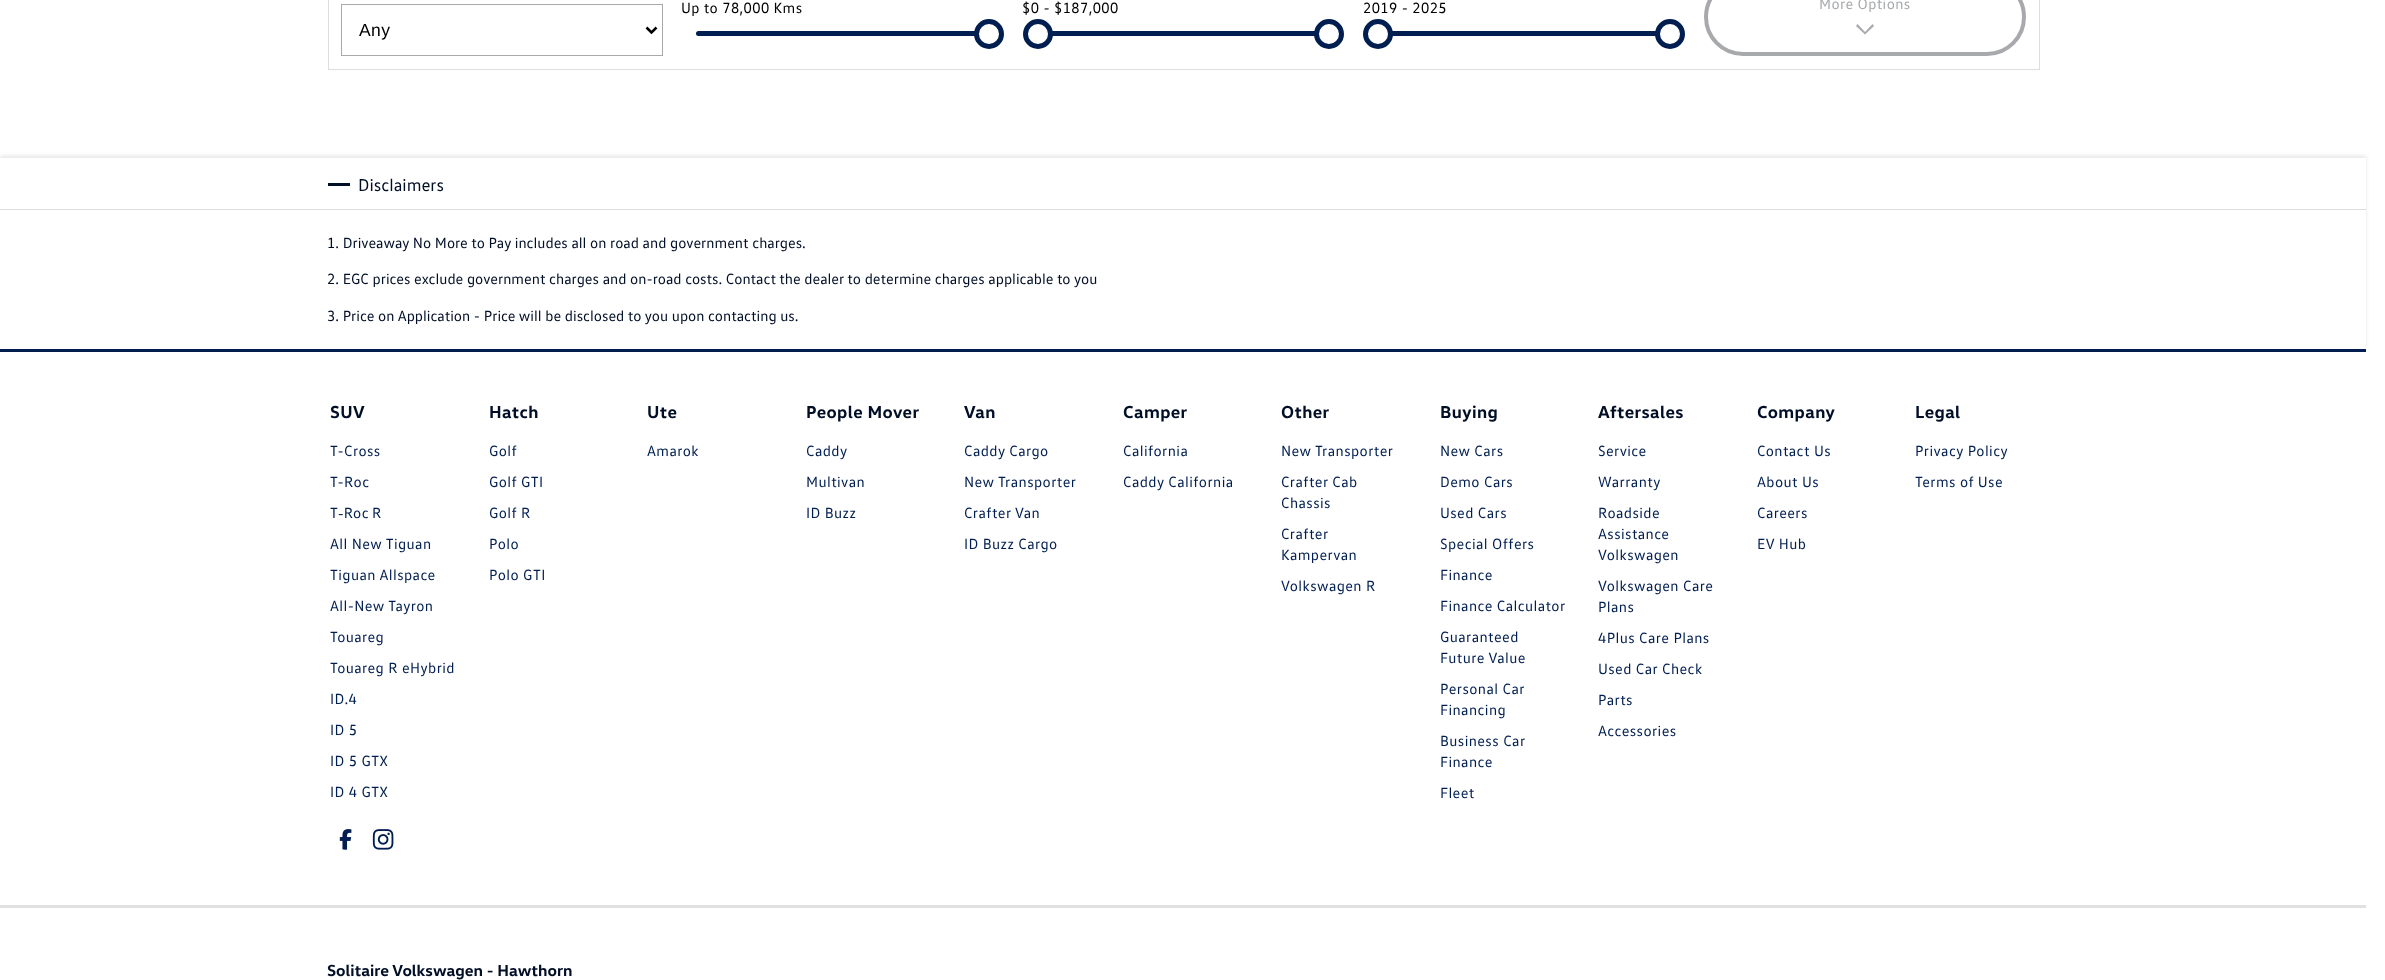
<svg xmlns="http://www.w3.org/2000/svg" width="2385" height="980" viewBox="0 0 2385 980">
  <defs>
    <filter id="blur1" x="-50%" y="-200%" width="200%" height="500%"><feGaussianBlur stdDeviation="2"/></filter>
  </defs>
  <rect width="100%" height="100%" fill="#ffffff"/>
  <rect x="328.5" y="-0.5" width="1711" height="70" fill="none" stroke="#dcddde"/>
  <text x="681" y="13" font-family="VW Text" font-size="15" letter-spacing="0.4" fill="#000000">Up to 78,000 Kms</text>
  <rect x="696" y="31" width="293" height="5" rx="2.5" fill="#001e50"/>
  <circle cx="989" cy="34" r="12.5" fill="#ffffff" stroke="#001e50" stroke-width="5"/>
  <text x="1022" y="13" font-family="VW Text" font-size="15" letter-spacing="0.4" fill="#000000">$0 - $187,000</text>
  <rect x="1052" y="31" width="263" height="5" fill="#001e50"/>
  <circle cx="1038" cy="34" r="12.5" fill="#ffffff" stroke="#001e50" stroke-width="5"/>
  <circle cx="1329" cy="34" r="12.5" fill="#ffffff" stroke="#001e50" stroke-width="5"/>
  <text x="1363" y="13" font-family="VW Text" font-size="15" letter-spacing="0.4" fill="#000000">2019 - 2025</text>
  <rect x="1392" y="31" width="264" height="5" fill="#001e50"/>
  <circle cx="1378" cy="34" r="12.5" fill="#ffffff" stroke="#001e50" stroke-width="5"/>
  <circle cx="1670" cy="34" r="12.5" fill="#ffffff" stroke="#001e50" stroke-width="5"/>
  <rect x="1706" y="-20" width="318" height="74" rx="37" fill="none" stroke="#a7a9ac" stroke-width="4"/>
  <text x="1819" y="9" font-family="VW Text" font-size="15" letter-spacing="0.4" fill="#a7a9ac">More Options</text>
  <path d="M1874 26L1865 34.5L1856 26L1857.5 24L1865 32L1872.5 24Z" fill="#a7a9ac"/>
  <rect x="341.5" y="4.5" width="321" height="51" fill="none" stroke="#a7a9ac"/>
  <path d="M646.5 27.5L651.5 32.5L656.5 27.5" fill="none" stroke="#000000" stroke-width="2.5"/>
  <text x="359" y="36" font-family="Liberation Sans" font-size="17.5" letter-spacing="0.4" fill="#000000">Any</text>
  <rect x="0" y="156" width="2366" height="192" fill="#000000" fill-opacity="0.1" filter="url(#blur1)"/>
  <rect x="0" y="158" width="2366" height="191" fill="#ffffff"/>
  <rect x="328" y="183" width="22" height="3" fill="#000e26"/>
  <text x="358" y="191" font-family="VW Text" font-size="17.5" fill="#000e26">Disclaimers</text>
  <rect x="0" y="209" width="2366" height="1" fill="#dcddde"/>
  <text x="327" y="248" font-family="VW Text" font-size="15" fill="#000e26">1. Driveaway No More to Pay includes all on road and government charges.</text>
  <text x="327" y="284" font-family="VW Text" font-size="15" fill="#000e26">2. EGC prices exclude government charges and on-road costs. Contact the dealer to determine charges applicable to you</text>
  <text x="327" y="321" font-family="VW Text" font-size="15" fill="#000e26">3. Price on Application - Price will be disclosed to you upon contacting us.</text>
  <rect x="0" y="349" width="2366" height="3" fill="#001e50"/>
  <text x="330" y="418" font-family="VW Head" font-size="17.5" font-weight="bold" letter-spacing="0.4" fill="#000e26">SUV</text>
  <text x="330" y="456" font-family="VW Text" font-size="15" letter-spacing="0.4" fill="#001e50">T-Cross</text>
  <text x="330" y="487" font-family="VW Text" font-size="15" letter-spacing="0.4" fill="#001e50">T-Roc</text>
  <text x="330" y="518" word-spacing="-1" font-family="VW Text" font-size="15" letter-spacing="0.4" fill="#001e50">T‑Roc R</text>
  <text x="330" y="549" font-family="VW Text" font-size="15" letter-spacing="0.4" fill="#001e50">All New Tiguan</text>
  <text x="330" y="580" font-family="VW Text" font-size="15" letter-spacing="0.4" fill="#001e50">Tiguan Allspace</text>
  <text x="330" y="611" font-family="VW Text" font-size="15" letter-spacing="0.4" fill="#001e50">All-New Tayron</text>
  <text x="330" y="642" font-family="VW Text" font-size="15" letter-spacing="0.4" fill="#001e50">Touareg</text>
  <text x="330" y="673" font-family="VW Text" font-size="15" letter-spacing="0.4" fill="#001e50">Touareg R eHybrid</text>
  <text x="330" y="704" font-family="VW Text" font-size="15" letter-spacing="0.4" fill="#001e50">ID.4</text>
  <text x="330" y="735" font-family="VW Text" font-size="15" letter-spacing="0.4" fill="#001e50">ID 5</text>
  <text x="330" y="766" font-family="VW Text" font-size="15" letter-spacing="0.4" fill="#001e50">ID 5 GTX</text>
  <text x="330" y="797" font-family="VW Text" font-size="15" letter-spacing="0.4" fill="#001e50">ID 4 GTX</text>
  <text x="489" y="418" font-family="VW Head" font-size="17.5" font-weight="bold" letter-spacing="0.4" fill="#000e26">Hatch</text>
  <text x="489" y="456" font-family="VW Text" font-size="15" letter-spacing="0.4" fill="#001e50">Golf</text>
  <text x="489" y="487" font-family="VW Text" font-size="15" letter-spacing="0.4" fill="#001e50">Golf GTI</text>
  <text x="489" y="518" font-family="VW Text" font-size="15" letter-spacing="0.4" fill="#001e50">Golf R</text>
  <text x="489" y="549" font-family="VW Text" font-size="15" letter-spacing="0.4" fill="#001e50">Polo</text>
  <text x="489" y="580" font-family="VW Text" font-size="15" letter-spacing="0.4" fill="#001e50">Polo GTI</text>
  <text x="647" y="418" font-family="VW Head" font-size="17.5" font-weight="bold" letter-spacing="0.4" fill="#000e26">Ute</text>
  <text x="647" y="456" font-family="VW Text" font-size="15" letter-spacing="0.4" fill="#001e50">Amarok</text>
  <text x="806" y="418" font-family="VW Head" font-size="17.5" font-weight="bold" letter-spacing="0.4" fill="#000e26">People Mover</text>
  <text x="806" y="456" font-family="VW Text" font-size="15" letter-spacing="0.4" fill="#001e50">Caddy</text>
  <text x="806" y="487" font-family="VW Text" font-size="15" letter-spacing="0.4" fill="#001e50">Multivan</text>
  <text x="806" y="518" font-family="VW Text" font-size="15" letter-spacing="0.4" fill="#001e50">ID Buzz</text>
  <text x="964" y="418" font-family="VW Head" font-size="17.5" font-weight="bold" letter-spacing="0.4" fill="#000e26">Van</text>
  <text x="964" y="456" font-family="VW Text" font-size="15" letter-spacing="0.4" fill="#001e50">Caddy Cargo</text>
  <text x="964" y="487" font-family="VW Text" font-size="15" letter-spacing="0.4" fill="#001e50">New Transporter</text>
  <text x="964" y="518" font-family="VW Text" font-size="15" letter-spacing="0.4" fill="#001e50">Crafter Van</text>
  <text x="964" y="549" font-family="VW Text" font-size="15" letter-spacing="0.4" fill="#001e50">ID Buzz Cargo</text>
  <text x="1123" y="418" font-family="VW Head" font-size="17.5" font-weight="bold" letter-spacing="0.4" fill="#000e26">Camper</text>
  <text x="1123" y="456" font-family="VW Text" font-size="15" letter-spacing="0.4" fill="#001e50">California</text>
  <text x="1123" y="487" font-family="VW Text" font-size="15" letter-spacing="0.4" fill="#001e50">Caddy California</text>
  <text x="1281" y="418" font-family="VW Head" font-size="17.5" font-weight="bold" letter-spacing="0.4" fill="#000e26">Other</text>
  <text x="1281" y="456" font-family="VW Text" font-size="15" letter-spacing="0.4" fill="#001e50">New Transporter</text>
  <text x="1281" y="487" font-family="VW Text" font-size="15" letter-spacing="0.4" fill="#001e50">Crafter Cab</text>
  <text x="1281" y="508" font-family="VW Text" font-size="15" letter-spacing="0.4" fill="#001e50">Chassis</text>
  <text x="1281" y="539" font-family="VW Text" font-size="15" letter-spacing="0.4" fill="#001e50">Crafter</text>
  <text x="1281" y="560" font-family="VW Text" font-size="15" letter-spacing="0.4" fill="#001e50">Kampervan</text>
  <text x="1281" y="591" font-family="VW Text" font-size="15" letter-spacing="0.4" fill="#001e50">Volkswagen R</text>
  <text x="1440" y="418" font-family="VW Head" font-size="17.5" font-weight="bold" letter-spacing="0.4" fill="#000e26">Buying</text>
  <text x="1440" y="456" font-family="VW Text" font-size="15" letter-spacing="0.4" fill="#001e50">New Cars</text>
  <text x="1440" y="487" font-family="VW Text" font-size="15" letter-spacing="0.4" fill="#001e50">Demo Cars</text>
  <text x="1440" y="518" font-family="VW Text" font-size="15" letter-spacing="0.4" fill="#001e50">Used Cars</text>
  <text x="1440" y="549" font-family="VW Text" font-size="15" letter-spacing="0.4" fill="#001e50">Special Offers</text>
  <text x="1440" y="580" font-family="VW Text" font-size="15" letter-spacing="0.4" fill="#001e50">Finance</text>
  <text x="1440" y="611" font-family="VW Text" font-size="15" letter-spacing="0.4" fill="#001e50">Finance Calculator</text>
  <text x="1440" y="642" font-family="VW Text" font-size="15" letter-spacing="0.4" fill="#001e50">Guaranteed</text>
  <text x="1440" y="663" font-family="VW Text" font-size="15" letter-spacing="0.4" fill="#001e50">Future Value</text>
  <text x="1440" y="694" font-family="VW Text" font-size="15" letter-spacing="0.4" fill="#001e50">Personal Car</text>
  <text x="1440" y="715" font-family="VW Text" font-size="15" letter-spacing="0.4" fill="#001e50">Financing</text>
  <text x="1440" y="746" font-family="VW Text" font-size="15" letter-spacing="0.4" fill="#001e50">Business Car</text>
  <text x="1440" y="767" font-family="VW Text" font-size="15" letter-spacing="0.4" fill="#001e50">Finance</text>
  <text x="1440" y="798" font-family="VW Text" font-size="15" letter-spacing="0.4" fill="#001e50">Fleet</text>
  <text x="1598" y="418" font-family="VW Head" font-size="17.5" font-weight="bold" letter-spacing="0.4" fill="#000e26">Aftersales</text>
  <text x="1598" y="456" font-family="VW Text" font-size="15" letter-spacing="0.4" fill="#001e50">Service</text>
  <text x="1598" y="487" font-family="VW Text" font-size="15" letter-spacing="0.4" fill="#001e50">Warranty</text>
  <text x="1598" y="518" font-family="VW Text" font-size="15" letter-spacing="0.4" fill="#001e50">Roadside</text>
  <text x="1598" y="539" font-family="VW Text" font-size="15" letter-spacing="0.4" fill="#001e50">Assistance</text>
  <text x="1598" y="560" font-family="VW Text" font-size="15" letter-spacing="0.4" fill="#001e50">Volkswagen</text>
  <text x="1598" y="591" font-family="VW Text" font-size="15" letter-spacing="0.4" fill="#001e50">Volkswagen Care</text>
  <text x="1598" y="612" font-family="VW Text" font-size="15" letter-spacing="0.4" fill="#001e50">Plans</text>
  <text x="1598" y="643" font-family="VW Text" font-size="15" letter-spacing="0.4" fill="#001e50">4Plus Care Plans</text>
  <text x="1598" y="674" font-family="VW Text" font-size="15" letter-spacing="0.4" fill="#001e50">Used Car Check</text>
  <text x="1598" y="705" font-family="VW Text" font-size="15" letter-spacing="0.4" fill="#001e50">Parts</text>
  <text x="1598" y="736" font-family="VW Text" font-size="15" letter-spacing="0.4" fill="#001e50">Accessories</text>
  <text x="1757" y="418" font-family="VW Head" font-size="17.5" font-weight="bold" letter-spacing="0.4" fill="#000e26">Company</text>
  <text x="1757" y="456" font-family="VW Text" font-size="15" letter-spacing="0.4" fill="#001e50">Contact Us</text>
  <text x="1757" y="487" font-family="VW Text" font-size="15" letter-spacing="0.4" fill="#001e50">About Us</text>
  <text x="1757" y="518" font-family="VW Text" font-size="15" letter-spacing="0.4" fill="#001e50">Careers</text>
  <text x="1757" y="549" font-family="VW Text" font-size="15" letter-spacing="0.4" fill="#001e50">EV Hub</text>
  <text x="1915" y="418" font-family="VW Head" font-size="17.5" font-weight="bold" letter-spacing="0.4" fill="#000e26">Legal</text>
  <text x="1915" y="456" font-family="VW Text" font-size="15" letter-spacing="0.4" fill="#001e50">Privacy Policy</text>
  <text x="1915" y="487" font-family="VW Text" font-size="15" letter-spacing="0.4" fill="#001e50">Terms of Use</text>
  <image x="339" y="829" width="13" height="21" href="img1.png"/>
  <image x="372" y="829" width="22" height="21" href="img2.png"/>
  <rect x="0" y="905" width="2366" height="3" fill="#e0e0e0"/>
  <text x="327" y="976" font-family="VW Head" font-size="16.25" font-weight="bold" fill="#000e26">Solitaire Volkswagen - Hawthorn</text>
</svg>
